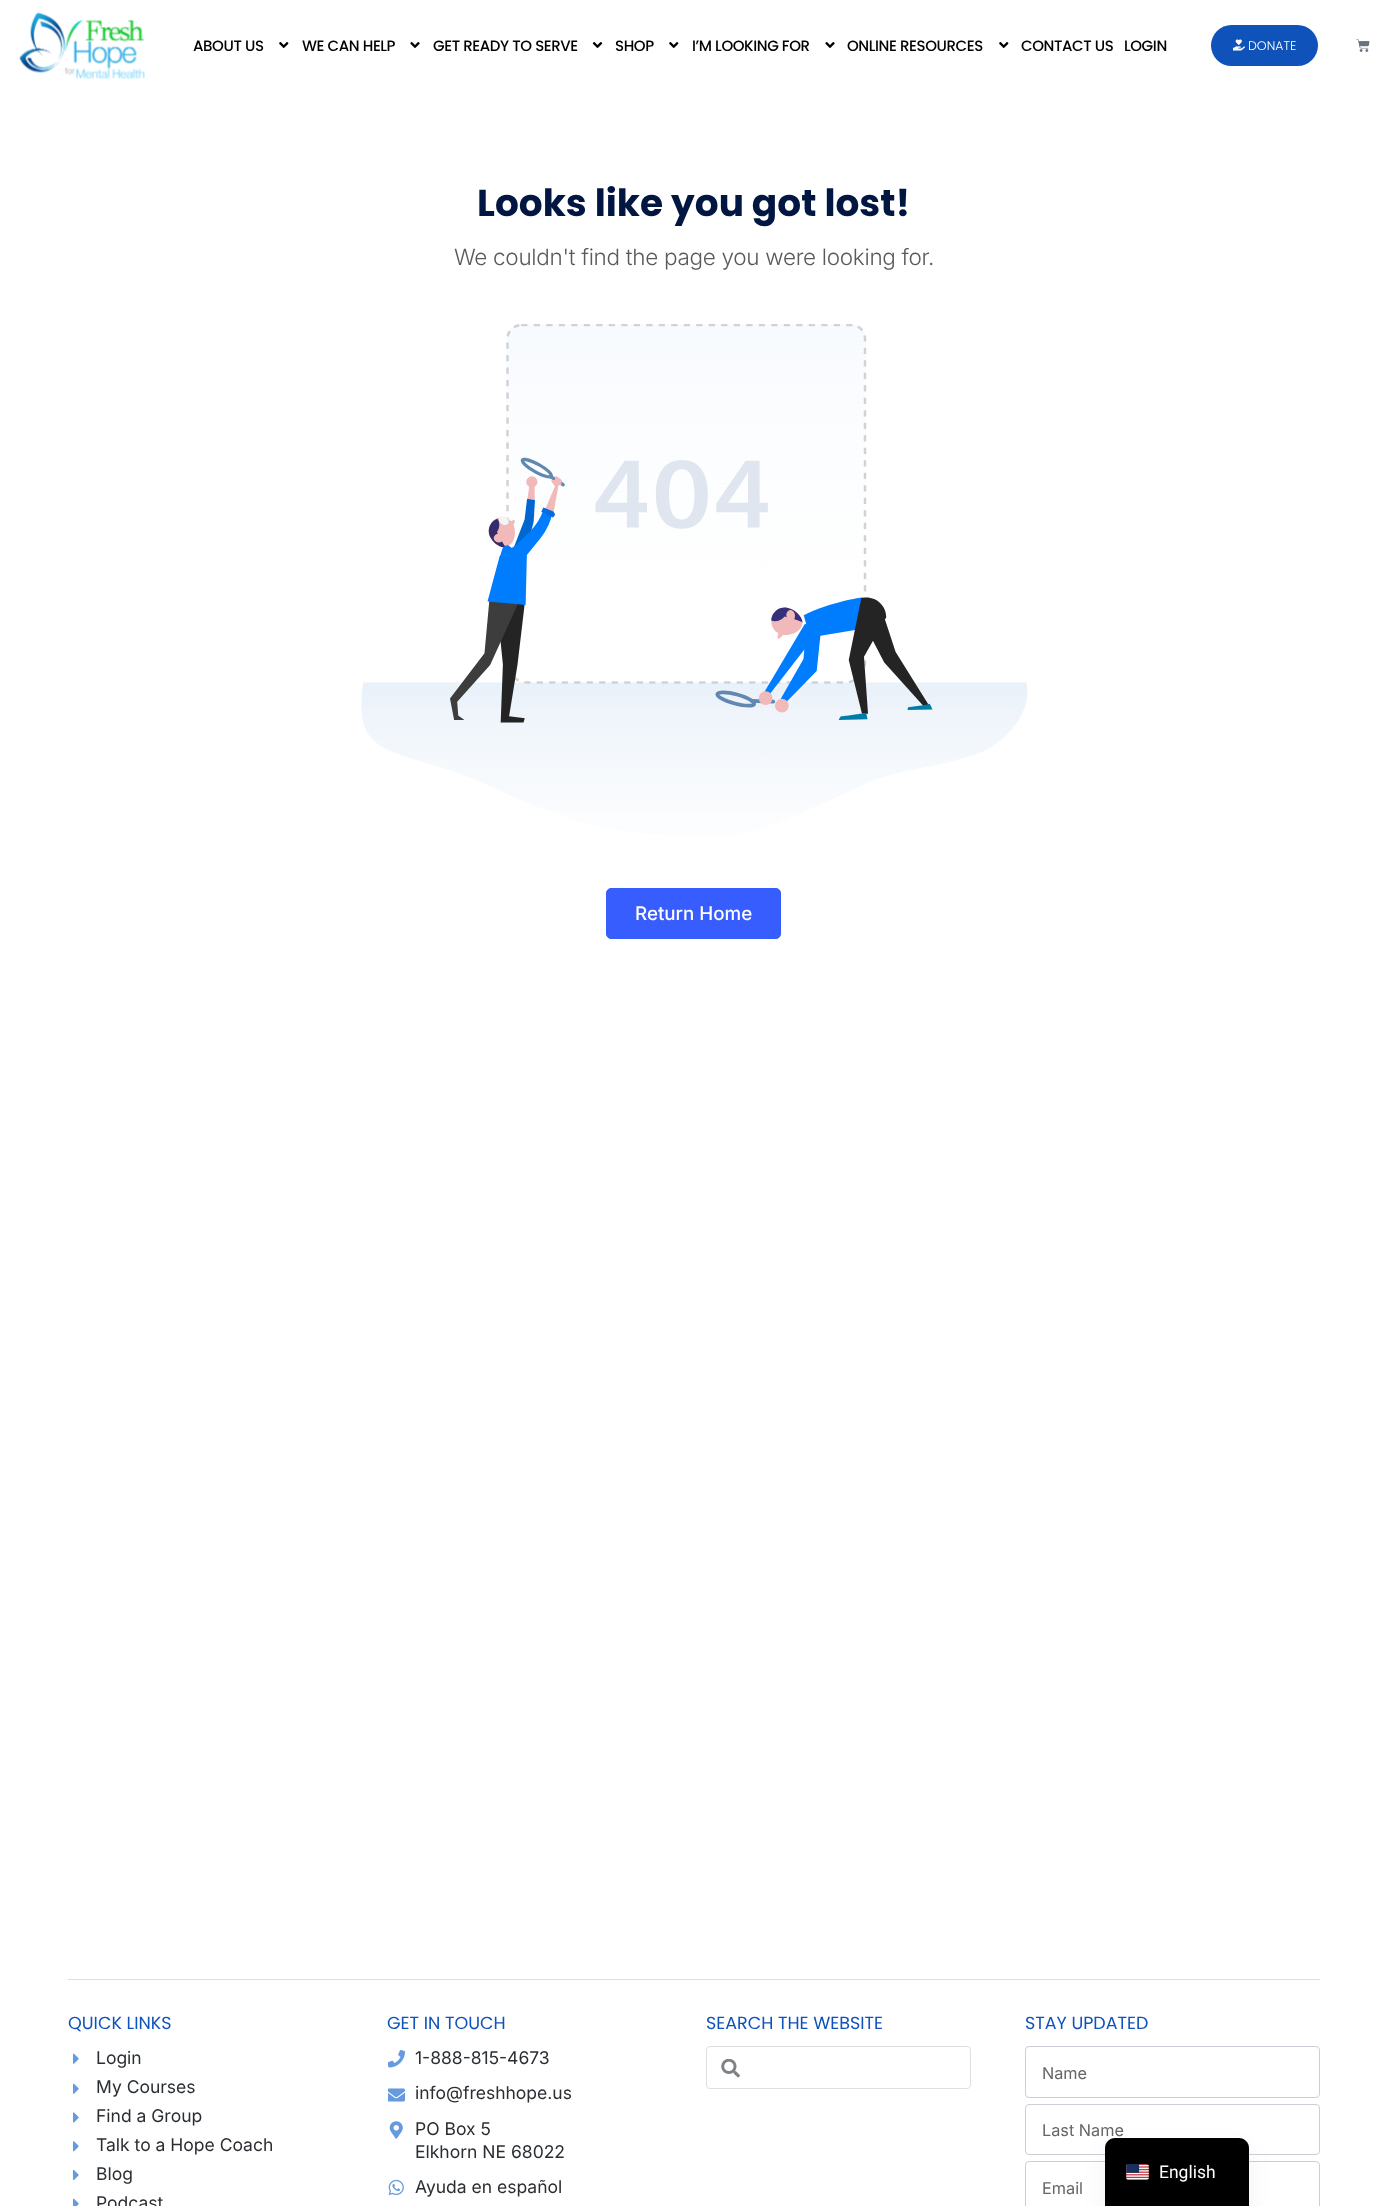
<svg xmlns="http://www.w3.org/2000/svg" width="1387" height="2206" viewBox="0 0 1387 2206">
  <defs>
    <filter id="blur1" x="-50%" y="-200%" width="200%" height="500%"><feGaussianBlur stdDeviation="12.5"/></filter>
  </defs>
  <rect width="100%" height="100%" fill="#ffffff"/>
  <image x="19" y="12" width="126" height="67" href="img1.png"/>
  <text x="193" y="51" font-family="Poppins" font-size="15" font-weight="500" letter-spacing="-0.4" fill="#000000">ABOUT US</text>
  <image x="279" y="42" width="10" height="6" href="img2.png"/>
  <text x="302" y="51" font-family="Poppins" font-size="15" font-weight="500" letter-spacing="-0.4" fill="#000000">WE CAN HELP</text>
  <image x="410" y="42" width="10" height="6" href="img3.png"/>
  <text x="433" y="51" font-family="Poppins" font-size="15" font-weight="500" letter-spacing="-0.4" fill="#000000">GET READY TO SERVE</text>
  <image x="592" y="42" width="11" height="6" href="img4.png"/>
  <text x="615" y="51" font-family="Poppins" font-size="15" font-weight="500" letter-spacing="-0.4" fill="#000000">SHOP</text>
  <image x="669" y="42" width="10" height="6" href="img2.png"/>
  <text x="692" y="51" font-family="Poppins" font-size="15" font-weight="500" letter-spacing="-0.4" fill="#000000">I’M LOOKING FOR</text>
  <image x="825" y="42" width="10" height="6" href="img3.png"/>
  <text x="847" y="51" font-family="Poppins" font-size="15" font-weight="500" letter-spacing="-0.4" fill="#000000">ONLINE RESOURCES</text>
  <image x="999" y="42" width="10" height="6" href="img2.png"/>
  <text x="1021" y="51" font-family="Poppins" font-size="15" font-weight="500" letter-spacing="-0.4" fill="#000000">CONTACT US</text>
  <text x="1124" y="51" font-family="Poppins" font-size="15" font-weight="500" letter-spacing="-0.4" fill="#000000">LOGIN</text>
  <rect x="1211" y="25" width="107" height="41" rx="20.5" fill="#0e52ba"/>
  <image x="1233" y="39" width="12" height="12" href="img5.png"/>
  <text x="1248" y="50" font-family="Poppins" font-size="12.5" font-weight="300" fill="#ffffff">DONATE</text>
  <image x="1356" y="39" width="14" height="13" href="img6.png"/>
  <text x="477" y="216" font-family="Poppins" font-size="37.5" font-weight="bold" fill="#011640">Looks like you got lost!</text>
  <text x="454" y="265" font-family="Inter" font-size="22.5" font-weight="300" letter-spacing="-0.3" fill="#5a5a5a">We couldn't find the page you were looking for.</text>
  <image x="361" y="324" width="667" height="511" href="img7.png"/>
  <rect x="606.5" y="888.5" width="174" height="50" rx="4.5" fill="#385dff" stroke="#385dff"/>
  <text x="635" y="920" font-family="Inter" font-size="18.75" font-weight="500" fill="#ffffff">Return Home</text>
  <rect x="68" y="1979" width="1252" height="1" fill="#dbe0e5"/>
  <text x="68" y="2029" font-family="Poppins" font-size="17.5" fill="#0e52ba">QUICK LINKS</text>
  <image x="72" y="2053" width="7" height="11" href="img8.png"/>
  <text x="96" y="2064" font-family="Inter" font-size="17.5" fill="#2a2e32">Login</text>
  <image x="72" y="2083" width="7" height="11" href="img8.png"/>
  <text x="96" y="2093" font-family="Inter" font-size="17.5" fill="#2a2e32">My Courses</text>
  <image x="72" y="2112" width="7" height="11" href="img9.png"/>
  <text x="96" y="2122" font-family="Inter" font-size="17.5" fill="#2a2e32">Find a Group</text>
  <image x="72" y="2141" width="7" height="11" href="img10.png"/>
  <text x="96" y="2151" font-family="Inter" font-size="17.5" fill="#2a2e32">Talk to a Hope Coach</text>
  <image x="72" y="2169" width="7" height="12" href="img11.png"/>
  <text x="96" y="2180" font-family="Inter" font-size="17.5" fill="#2a2e32">Blog</text>
  <image x="72" y="2198" width="7" height="8" href="img12.png"/>
  <text x="96" y="2209" font-family="Inter" font-size="17.5" fill="#2a2e32">Podcast</text>
  <text x="387" y="2029" font-family="Poppins" font-size="17.5" fill="#0e52ba">GET IN TOUCH</text>
  <image x="388" y="2050" width="17" height="18" href="img13.png"/>
  <text x="415" y="2064" font-family="Inter" font-size="17.5" fill="#2a2e32">1-888-815-4673</text>
  <image x="388" y="2088" width="17" height="14" href="img14.png"/>
  <text x="415" y="2099" font-family="Inter" font-size="17.5" fill="#2a2e32">info@freshhope.us</text>
  <image x="389" y="2121" width="14" height="18" href="img15.png"/>
  <text x="415" y="2135" font-family="Inter" font-size="17.5" fill="#2a2e32">PO Box 5</text>
  <text x="415" y="2158" font-family="Inter" font-size="17.5" fill="#2a2e32">Elkhorn NE 68022</text>
  <image x="388" y="2179" width="16" height="17" href="img16.png"/>
  <text x="415" y="2193" font-family="Inter" font-size="17.5" fill="#2a2e32">Ayuda en español</text>
  <text x="706" y="2029" font-family="Poppins" font-size="17.5" fill="#0e52ba">SEARCH THE WEBSITE</text>
  <rect x="706.5" y="2046.5" width="264" height="42" rx="3.5" fill="none" stroke="#dbe0e5"/>
  <image x="721" y="2059" width="19" height="19" href="img17.png"/>
  <text x="1025" y="2029" font-family="Poppins" font-size="17.5" fill="#0e52ba">STAY UPDATED</text>
  <rect x="1025.5" y="2046.5" width="294" height="51" rx="3.5" fill="none" stroke="#caced7"/>
  <text x="1042" y="2079" font-family="Inter" font-size="16.25" fill="#666666">Name</text>
  <rect x="1025.5" y="2104.5" width="294" height="50" rx="3.5" fill="none" stroke="#caced7"/>
  <text x="1042" y="2136" font-family="Inter" font-size="16.25" fill="#666666">Last Name</text>
  <rect x="1025.5" y="2161.5" width="294" height="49" rx="3.5" fill="none" stroke="#caced7"/>
  <text x="1042" y="2194" font-family="Inter" font-size="16.25" fill="#666666">Email</text>
  <rect x="1105" y="2150" width="144" height="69" rx="10" fill="#000000" fill-opacity="0.05" filter="url(#blur1)"/>
  <path d="M1115 2138H1239C1244.5 2138 1249 2142.5 1249 2148V2206H1105V2148C1105 2142.5 1109.5 2138 1115 2138Z" fill="#000000"/>
  <image x="1126" y="2164" width="23" height="16" href="img18.png"/>
  <text x="1159" y="2178" font-family="Roboto" font-size="17.5" fill="#ffffff">English</text>
</svg>
